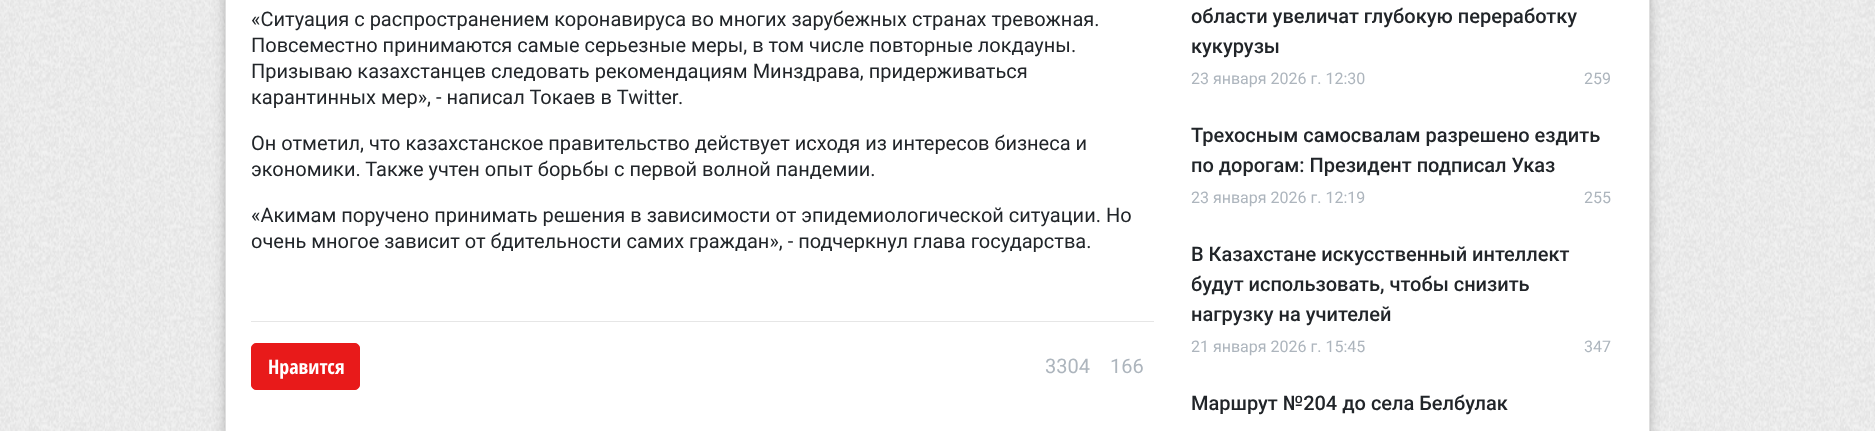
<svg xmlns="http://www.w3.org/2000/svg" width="1875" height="431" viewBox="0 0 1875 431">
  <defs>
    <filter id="blur1" x="-50%" y="-200%" width="200%" height="500%"><feGaussianBlur stdDeviation="6"/></filter>
  </defs>
  <rect width="100%" height="100%" fill="#ffffff"/>
  <image x="0" y="0" width="1875" height="431" href="img1.png"/>
  <rect x="225" y="-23" width="1425" height="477" rx="5" fill="#000000" fill-opacity="0.25" filter="url(#blur1)"/>
  <rect x="225.5" y="-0.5" width="1424" height="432" fill="#ffffff" stroke="#dfdfdf"/>
  <text x="251" y="26" font-family="Roboto" font-size="20" fill="#212529">«Ситуация с распространением коронавируса во многих зарубежных странах тревожная.</text>
  <text x="251" y="52" font-family="Roboto" font-size="20" fill="#212529">Повсеместно принимаются самые серьезные меры, в том числе повторные локдауны.</text>
  <text x="251" y="78" font-family="Roboto" font-size="20" fill="#212529">Призываю казахстанцев следовать рекомендациям Минздрава, придерживаться</text>
  <text x="251" y="104" font-family="Roboto" font-size="20" fill="#212529">карантинных мер», - написал Токаев в Twitter</text>
  <text x="678" y="104" font-family="Roboto" font-size="20" fill="#212529">.</text>
  <text x="251" y="150" font-family="Roboto" font-size="20" fill="#212529">Он отметил, что казахстанское правительство действует исходя из интересов бизнеса и</text>
  <text x="251" y="176" font-family="Roboto" font-size="20" fill="#212529">экономики. Также учтен опыт борьбы с первой волной пандемии.</text>
  <text x="251" y="222" font-family="Roboto" font-size="20" fill="#212529">«Акимам поручено принимать решения в зависимости от эпидемиологической ситуации. Но</text>
  <text x="251" y="248" font-family="Roboto" font-size="20" fill="#212529">очень многое зависит от бдительности самих граждан», - подчеркнул глава государства.</text>
  <rect x="251" y="321" width="903" height="1" fill="#e6e6e6"/>
  <rect x="251.5" y="343.5" width="108" height="46" rx="4.5" fill="#e81a1a" stroke="#e81a1a"/>
  <text x="268" y="374" font-family="Open Sans Condensed" font-size="20" font-weight="bold" fill="#ffffff">Нравится</text>
  <text x="1045" y="373" font-family="Roboto" font-size="20" fill="#adb5bd">3304</text>
  <text x="1110" y="373" font-family="Roboto" font-size="20" fill="#adb5bd">166</text>
  <text x="1191" y="23" font-family="Roboto" font-size="20" font-weight="500" fill="#212529">области увеличат глубокую переработку</text>
  <text x="1191" y="53" font-family="Roboto" font-size="20" font-weight="500" fill="#212529">кукурузы</text>
  <text x="1191" y="84" font-family="Roboto" font-size="16" fill="#adb5bd">23 января 2026 г. 12:30</text>
  <text x="1584" y="84" font-family="Roboto" font-size="16" fill="#adb5bd">259</text>
  <text x="1191" y="142" font-family="Roboto" font-size="20" font-weight="500" fill="#212529">Трехосным самосвалам разрешено ездить</text>
  <text x="1191" y="172" font-family="Roboto" font-size="20" font-weight="500" fill="#212529">по дорогам: Президент подписал Указ</text>
  <text x="1191" y="203" font-family="Roboto" font-size="16" fill="#adb5bd">23 января 2026 г. 12:19</text>
  <text x="1584" y="203" font-family="Roboto" font-size="16" fill="#adb5bd">255</text>
  <text x="1191" y="261" font-family="Roboto" font-size="20" font-weight="500" fill="#212529">В Казахстане искусственный интеллект</text>
  <text x="1191" y="291" font-family="Roboto" font-size="20" font-weight="500" fill="#212529">будут использовать, чтобы снизить</text>
  <text x="1191" y="321" font-family="Roboto" font-size="20" font-weight="500" fill="#212529">нагрузку на учителей</text>
  <text x="1191" y="352" font-family="Roboto" font-size="16" fill="#adb5bd">21 января 2026 г. 15:45</text>
  <text x="1584" y="352" font-family="Roboto" font-size="16" fill="#adb5bd">347</text>
  <text x="1191" y="410" font-family="Roboto" font-size="20" font-weight="500" fill="#212529">Маршрут №204 до села Белбулак</text>
</svg>
